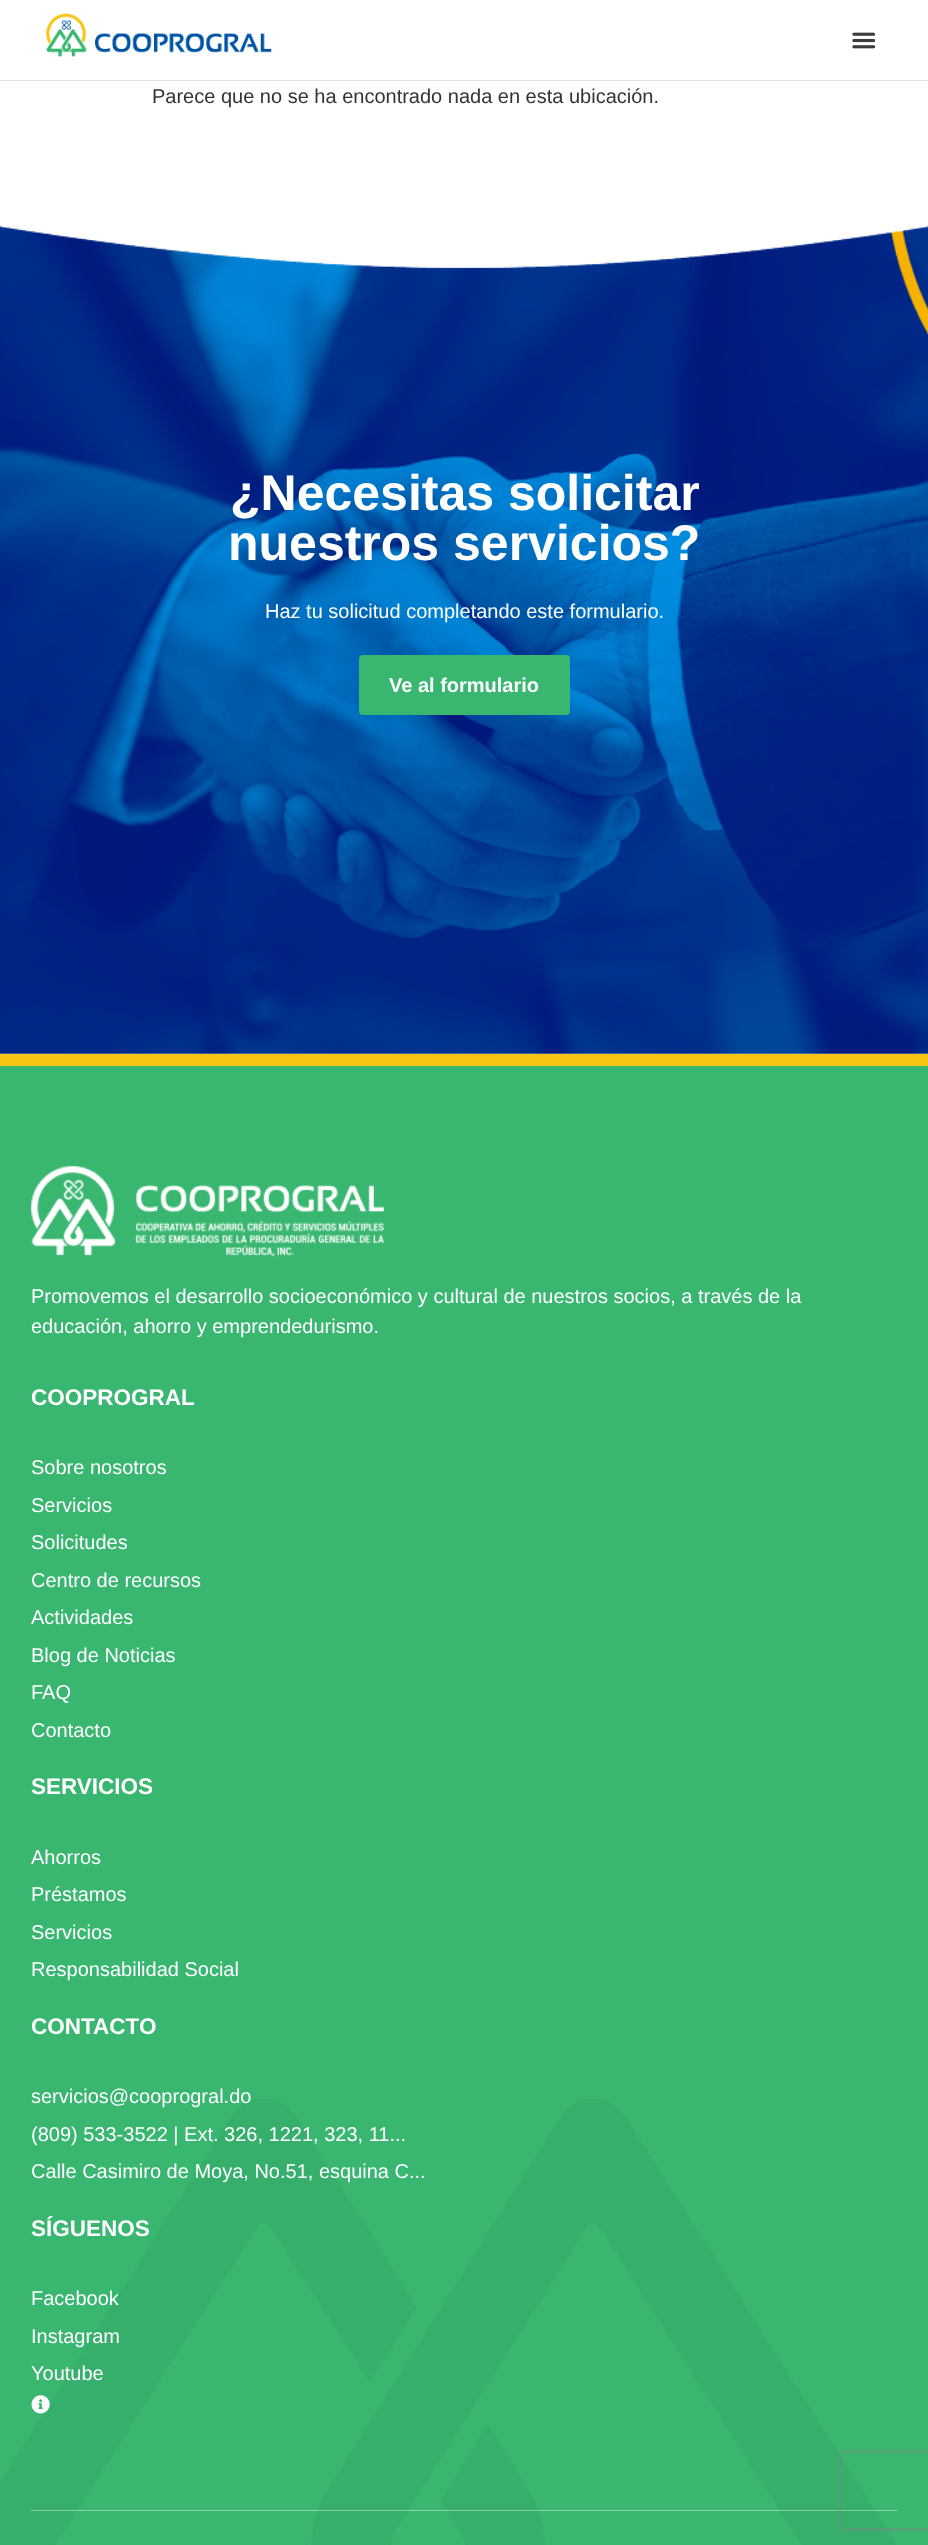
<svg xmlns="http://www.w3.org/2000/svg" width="928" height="2545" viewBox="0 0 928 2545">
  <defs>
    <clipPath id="clip1"><path d="M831 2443H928V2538H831ZM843.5 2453H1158.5C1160 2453 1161 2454 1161 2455.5V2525.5C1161 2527 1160 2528 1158.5 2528H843.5C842 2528 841 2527 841 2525.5V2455.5C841 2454 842 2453 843.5 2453Z" clip-rule="evenodd"/></clipPath>
    <filter id="blur1" x="-50%" y="-200%" width="200%" height="500%"><feGaussianBlur stdDeviation="3"/></filter>
  </defs>
  <rect width="100%" height="100%" fill="#ffffff"/>
  <rect x="0" y="80" width="928" height="1" fill="#e3e3e3"/>
  <image x="46" y="13" width="226" height="44" href="img1.png"/>
  <image x="852" y="32" width="24" height="17" href="img2.png"/>
  <text x="152" y="103" font-family="Liberation Sans" font-size="20" fill="#333333">Parece que no se ha encontrado nada en esta ubicación.</text>
  <image x="0" y="226" width="928" height="828" href="img3.png"/>
  <rect x="0" y="1054" width="928" height="12" fill="#f8c514"/>
  <text x="230" y="510" font-family="Liberation Sans" font-size="50" font-weight="bold" fill="#ffffff">¿Necesitas solicitar</text>
  <text x="228" y="560" font-family="Liberation Sans" font-size="50" font-weight="bold" fill="#ffffff">nuestros servicios?</text>
  <text x="265" y="618" font-family="Liberation Sans" font-size="20" fill="#ffffff">Haz tu solicitud completando este formulario.</text>
  <rect x="359" y="655" width="211" height="60" rx="4" fill="#39b771"/>
  <text x="389" y="692" font-family="Liberation Sans" font-size="20" font-weight="bold" fill="#ffffff">Ve al formulario</text>
  <rect x="0" y="1066" width="928" height="1479" fill="#39b771"/>
  <image x="0" y="2099" width="896" height="446" href="img4.png"/>
  <image x="31" y="1166" width="353" height="91" href="img5.png"/>
  <text x="31" y="1303" font-family="Liberation Sans" font-size="20" fill="#ffffff">Promovemos el desarrollo socioeconómico y cultural de nuestros socios, a través de la</text>
  <text x="31" y="1333" font-family="Liberation Sans" font-size="20" fill="#ffffff">educación, ahorro y emprendedurismo.</text>
  <text x="31" y="1405" font-family="Liberation Sans" font-size="22.5" font-weight="bold" fill="#ffffff">COOPROGRAL</text>
  <text x="31" y="1474" font-family="Liberation Sans" font-size="20" fill="#ffffff">Sobre nosotros</text>
  <text x="31" y="1512" font-family="Liberation Sans" font-size="20" fill="#ffffff">Servicios</text>
  <text x="31" y="1549" font-family="Liberation Sans" font-size="20" fill="#ffffff">Solicitudes</text>
  <text x="31" y="1587" font-family="Liberation Sans" font-size="20" fill="#ffffff">Centro de recursos</text>
  <text x="31" y="1624" font-family="Liberation Sans" font-size="20" fill="#ffffff">Actividades</text>
  <text x="31" y="1662" font-family="Liberation Sans" font-size="20" fill="#ffffff">Blog de Noticias</text>
  <text x="31" y="1699" font-family="Liberation Sans" font-size="20" fill="#ffffff">FAQ</text>
  <text x="31" y="1737" font-family="Liberation Sans" font-size="20" fill="#ffffff">Contacto</text>
  <text x="31" y="1794" font-family="Liberation Sans" font-size="22.5" font-weight="bold" fill="#ffffff">SERVICIOS</text>
  <text x="31" y="1864" font-family="Liberation Sans" font-size="20" fill="#ffffff">Ahorros</text>
  <text x="31" y="1901" font-family="Liberation Sans" font-size="20" fill="#ffffff">Préstamos</text>
  <text x="31" y="1939" font-family="Liberation Sans" font-size="20" fill="#ffffff">Servicios</text>
  <text x="31" y="1976" font-family="Liberation Sans" font-size="20" fill="#ffffff">Responsabilidad Social</text>
  <text x="31" y="2034" font-family="Liberation Sans" font-size="22.5" font-weight="bold" fill="#ffffff">CONTACTO</text>
  <text x="31" y="2103" font-family="Liberation Sans" font-size="20" fill="#ffffff">servicios@cooprogral.do</text>
  <text x="31" y="2141" font-family="Liberation Sans" font-size="20" fill="#ffffff">(809) 533-3522 | Ext. 326, 1221, 323, 11...</text>
  <text x="31" y="2178" font-family="Liberation Sans" font-size="20" fill="#ffffff">Calle Casimiro de Moya, No.51, esquina C...</text>
  <text x="31" y="2236" font-family="Liberation Sans" font-size="22.5" font-weight="bold" fill="#ffffff">SÍGUENOS</text>
  <text x="31" y="2305" font-family="Liberation Sans" font-size="20" fill="#ffffff">Facebook</text>
  <text x="31" y="2343" font-family="Liberation Sans" font-size="20" fill="#ffffff">Instagram</text>
  <text x="31" y="2380" font-family="Liberation Sans" font-size="20" fill="#ffffff">Youtube</text>
  <image x="31" y="2395" width="19" height="19" href="img6.png"/>
  <rect x="31" y="2510" width="867" height="1" fill="#ffffff" fill-opacity="0.4"/>
  <g clip-path="url(#clip1)">
    <rect x="841" y="2453" width="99" height="75" rx="2.5" fill="#808080" filter="url(#blur1)"/>
  </g>
</svg>
